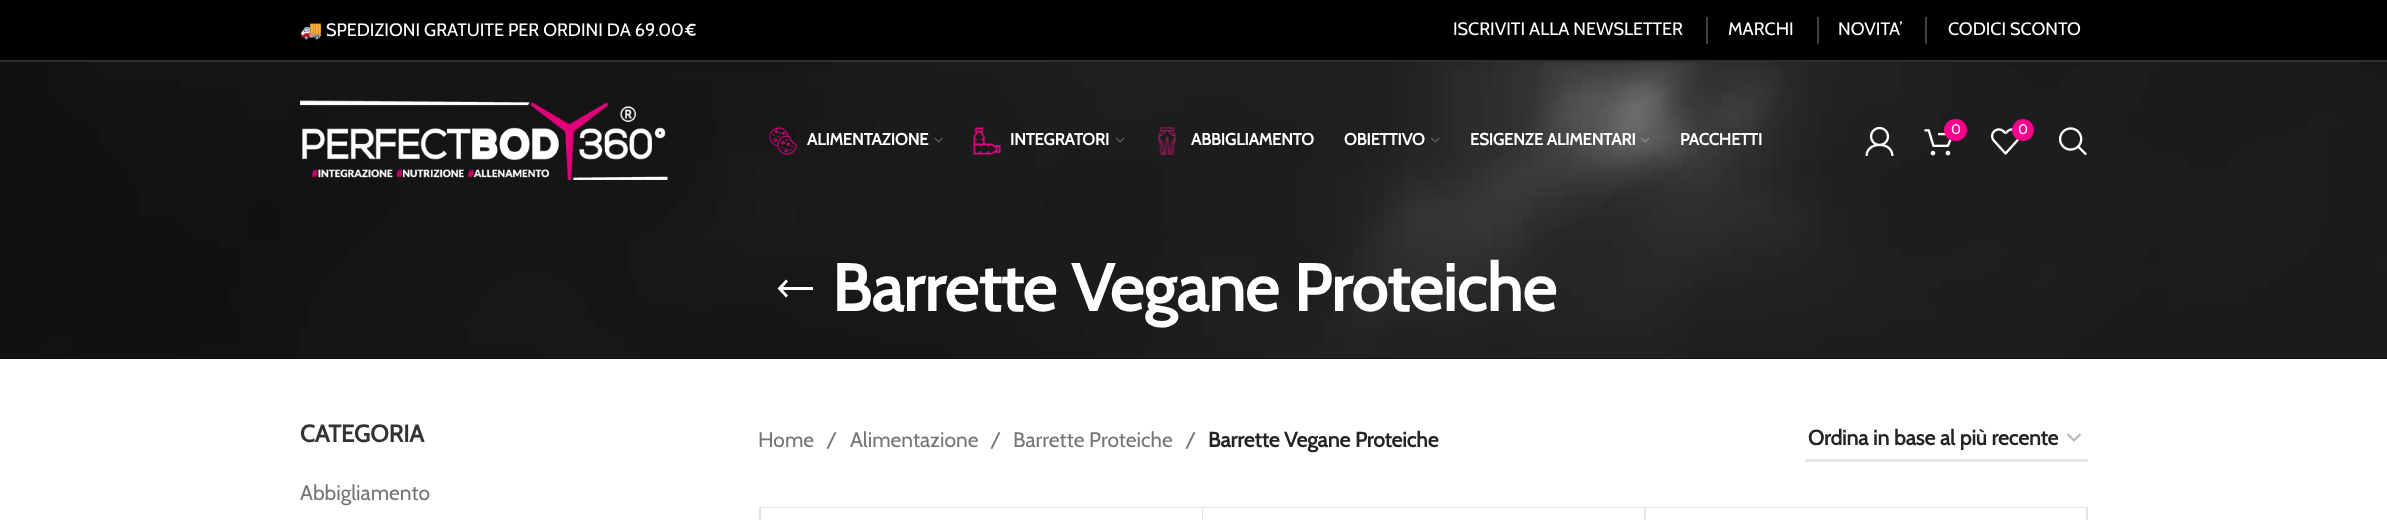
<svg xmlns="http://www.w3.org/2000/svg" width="2387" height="520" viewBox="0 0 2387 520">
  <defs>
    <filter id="blur1" x="-50%" y="-200%" width="200%" height="500%"><feGaussianBlur stdDeviation="6"/></filter>
  </defs>
  <rect width="100%" height="100%" fill="#ffffff"/>
  <rect x="0" y="358" width="2387" height="1" fill="#0a0a0a"/>
  <image x="0" y="62" width="2387" height="297" href="img13.png"/>
  <rect x="0" y="2" width="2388" height="61" fill="#000000" fill-opacity="0.1" filter="url(#blur1)"/>
  <rect x="0" y="0" width="2387" height="60" fill="#000000"/>
  <rect x="0" y="60" width="2387" height="2" fill="#302f2f"/>
  <text x="300" y="36" font-family="Noto Color Emoji" font-size="18" fill="#ffffff">🚚</text>
  <text x="326" y="36" font-family="Cabin" font-size="18" fill="#ffffff">SPEDIZIONI GRATUITE PER ORDINI DA 69.00€</text>
  <text x="1453" y="35" font-family="Cabin" font-size="18" fill="#ffffff">ISCRIVITI ALLA NEWSLETTER</text>
  <rect x="1706" y="17" width="2" height="27" fill="#404040"/>
  <text x="1728" y="35" font-family="Cabin" font-size="18" fill="#ffffff">MARCHI</text>
  <rect x="1817" y="17" width="2" height="27" fill="#404040"/>
  <text x="1838" y="35" font-family="Cabin" font-size="18" fill="#ffffff">NOVITA’</text>
  <rect x="1925" y="17" width="2" height="27" fill="#404040"/>
  <text x="1948" y="35" font-family="Cabin" font-size="18" fill="#ffffff">CODICI SCONTO</text>
  <image x="300" y="100" width="368" height="80" href="img1.png"/>
  <image x="1865" y="126" width="29" height="30" href="img2.png"/>
  <image x="1924" y="129" width="28" height="27" href="img3.png"/>
  <rect x="1944" y="119" width="23" height="22" rx="11" fill="#f8008b"/>
  <text x="1951" y="134" font-family="Cabin" font-size="14" fill="#ffffff">0</text>
  <image x="1991" y="128" width="28" height="27" href="img4.png"/>
  <circle cx="2023" cy="130" r="11" fill="#f8008b"/>
  <text x="2018" y="134" font-family="Cabin" font-size="14" fill="#ffffff">0</text>
  <image x="2059" y="127" width="28" height="29" href="img5.png"/>
  <image x="769" y="127" width="28" height="28" href="img6.png"/>
  <text x="807" y="145" font-family="Cabin" font-size="16.5" font-weight="bold" fill="#ffffff">ALIMENTAZIONE</text>
  <image x="934" y="137" width="9" height="6" href="img7.png"/>
  <image x="973" y="127" width="28" height="28" href="img8.png"/>
  <text x="1010" y="145" font-family="Cabin" font-size="16.5" font-weight="bold" fill="#ffffff">INTEGRATORI</text>
  <image x="1116" y="137" width="9" height="6" href="img9.png"/>
  <image x="1158" y="127" width="18" height="28" href="img10.png"/>
  <text x="1191" y="145" font-family="Cabin" font-size="16.5" font-weight="bold" fill="#ffffff">ABBIGLIAMENTO</text>
  <text x="1344" y="145" font-family="Cabin" font-size="16.5" font-weight="bold" fill="#ffffff">OBIETTIVO</text>
  <image x="1431" y="137" width="9" height="6" href="img11.png"/>
  <text x="1470" y="145" font-family="Cabin" font-size="16.5" font-weight="bold" fill="#ffffff">ESIGENZE ALIMENTARI</text>
  <image x="1641" y="137" width="9" height="6" href="img12.png"/>
  <text x="1680" y="145" font-family="Cabin" font-size="16.5" font-weight="bold" fill="#ffffff">PACCHETTI</text>
  <path d="M788 295.5L783 290H813V287H783L788 281.5L786 279.5L777.5 288.5L786 297.5Z" fill="#ffffff"/>
  <text x="832" y="311" font-family="Cabin" font-size="66" font-weight="bold" fill="#ffffff">Barrette Vegane Proteiche</text>
  <text x="300" y="442" font-family="Cabin" font-size="24" font-weight="bold" fill="#333333">CATEGORIA</text>
  <text x="300" y="500" font-family="Cabin" font-size="21" fill="#767676">Abbigliamento</text>
  <text x="758" y="447" font-family="Cabin" font-size="21" fill="#767676">Home</text>
  <text x="826" y="447" font-family="Cabin" font-size="21" fill="#767676">/</text>
  <text x="850" y="447" font-family="Cabin" font-size="21" fill="#767676">Alimentazione</text>
  <text x="990" y="447" font-family="Cabin" font-size="21" fill="#767676">/</text>
  <text x="1013" y="447" font-family="Cabin" font-size="21" fill="#767676">Barrette Proteiche</text>
  <text x="1185" y="447" font-family="Cabin" font-size="21" fill="#767676">/</text>
  <text x="1208" y="447" font-family="Cabin" font-size="21" font-weight="bold" fill="#242424">Barrette Vegane Proteiche</text>
  <path d="M2067.5 434L2074 440.5L2080.5 434" fill="none" stroke="#bbbbbb" stroke-width="2.2"/>
  <rect x="1805" y="459" width="283" height="3" fill="#e6e6e6"/>
  <text x="1808" y="445" font-family="Cabin" font-size="21" font-weight="bold" fill="#242424">Ordina in base al più recente</text>
  <rect x="759" y="507" width="2" height="13" fill="#e4e4e4"/>
  <path d="M760 507H1203L1202 508H760Z" fill="#000000" fill-opacity="0.11"/>
  <path d="M1203 507V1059L1202 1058V508Z" fill="#000000" fill-opacity="0.11"/>
  <path d="M1203 507H1646L1644 508H1203Z" fill="#e4e4e4"/>
  <path d="M1646 507V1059L1644 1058V508Z" fill="#000000" fill-opacity="0.11"/>
  <path d="M1646 507H2088L2086 508H1646Z" fill="#e4e4e4"/>
  <path d="M2088 507V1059L2086 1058V508Z" fill="#000000" fill-opacity="0.11"/>
</svg>
